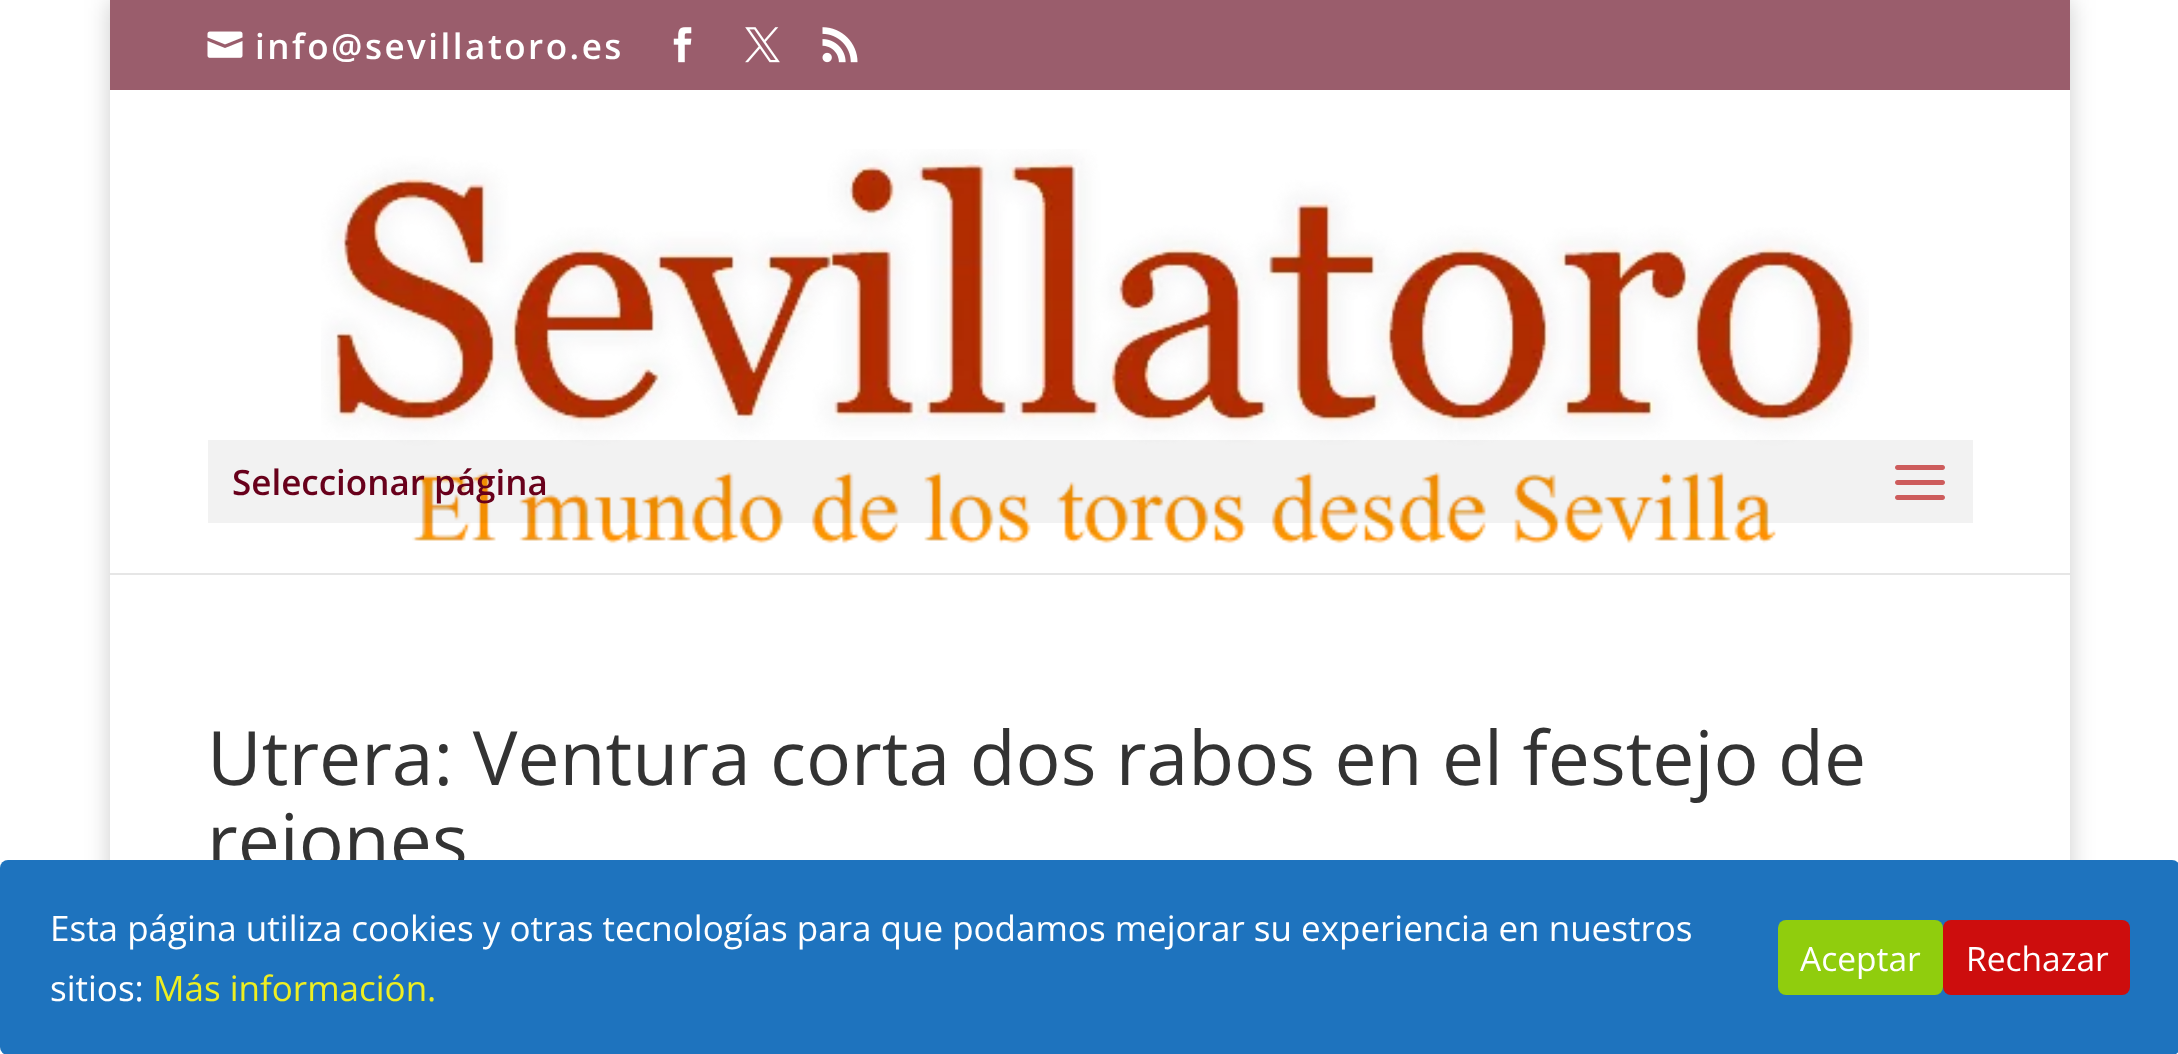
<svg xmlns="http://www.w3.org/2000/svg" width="2178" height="1054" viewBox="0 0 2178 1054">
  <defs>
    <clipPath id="clip1"><path d="M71 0H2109V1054H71ZM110 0H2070V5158H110Z" clip-rule="evenodd"/></clipPath>
    <filter id="blur1" x="-50%" y="-200%" width="200%" height="500%"><feGaussianBlur stdDeviation="12.5"/></filter>
  </defs>
  <rect width="100%" height="100%" fill="#ffffff"/>
  <g clip-path="url(#clip1)">
    <rect x="110" y="0" width="1960" height="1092" fill="#000000" fill-opacity="0.2" filter="url(#blur1)"/>
  </g>
  <rect x="110" y="0" width="1960" height="90" fill="#9a5d6c"/>
  <image x="207" y="31" width="36" height="27" href="img1.png"/>
  <text x="255" y="59" font-family="Open Sans" font-size="35" font-weight="600" letter-spacing="2.5" fill="#ffffff">info@sevillatoro.es</text>
  <image x="673" y="27" width="19" height="36" href="img2.png"/>
  <image x="745" y="27" width="35" height="36" href="img3.png"/>
  <image x="822" y="27" width="36" height="36" href="img4.png"/>
  <rect x="110" y="573" width="1960" height="2" fill="#e6e6e6"/>
  <image x="321" y="149" width="1548" height="395" href="img5.png"/>
  <rect x="208" y="440" width="1765" height="83" fill="#000000" fill-opacity="0.05"/>
  <text x="232" y="495" font-family="Open Sans" font-size="35" font-weight="600" fill="#68001b">Seleccionar página</text>
  <image x="1895" y="465" width="50" height="35" href="img6.png"/>
  <text x="207" y="785" font-family="Open Sans" font-size="75" fill="#333333">Utrera: Ventura corta dos rabos en el festejo de</text>
  <text x="207" y="868" font-family="Open Sans" font-size="75" fill="#333333">rejones</text>
  <rect x="0" y="860" width="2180" height="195" rx="8" fill="#1e73be"/>
  <text x="50" y="941" font-family="Open Sans" font-size="35" fill="#ffffff">Esta página utiliza cookies y otras tecnologías para que podamos mejorar su experiencia en nuestros</text>
  <text x="50" y="1001" font-family="Open Sans" font-size="35" fill="#ffffff">sitios:</text>
  <text x="153" y="1001" font-family="Open Sans" font-size="35" fill="#eeee22">Más información.</text>
  <rect x="1778" y="920" width="165" height="75" rx="8" fill="#90cd0d"/>
  <text x="1800" y="971" font-family="Open Sans" font-size="33.5" fill="#ffffff">Aceptar</text>
  <rect x="1943" y="920" width="187" height="75" rx="8" fill="#cd0d0d"/>
  <text x="1966" y="971" font-family="Open Sans" font-size="33.5" fill="#ffffff">Rechazar</text>
</svg>
